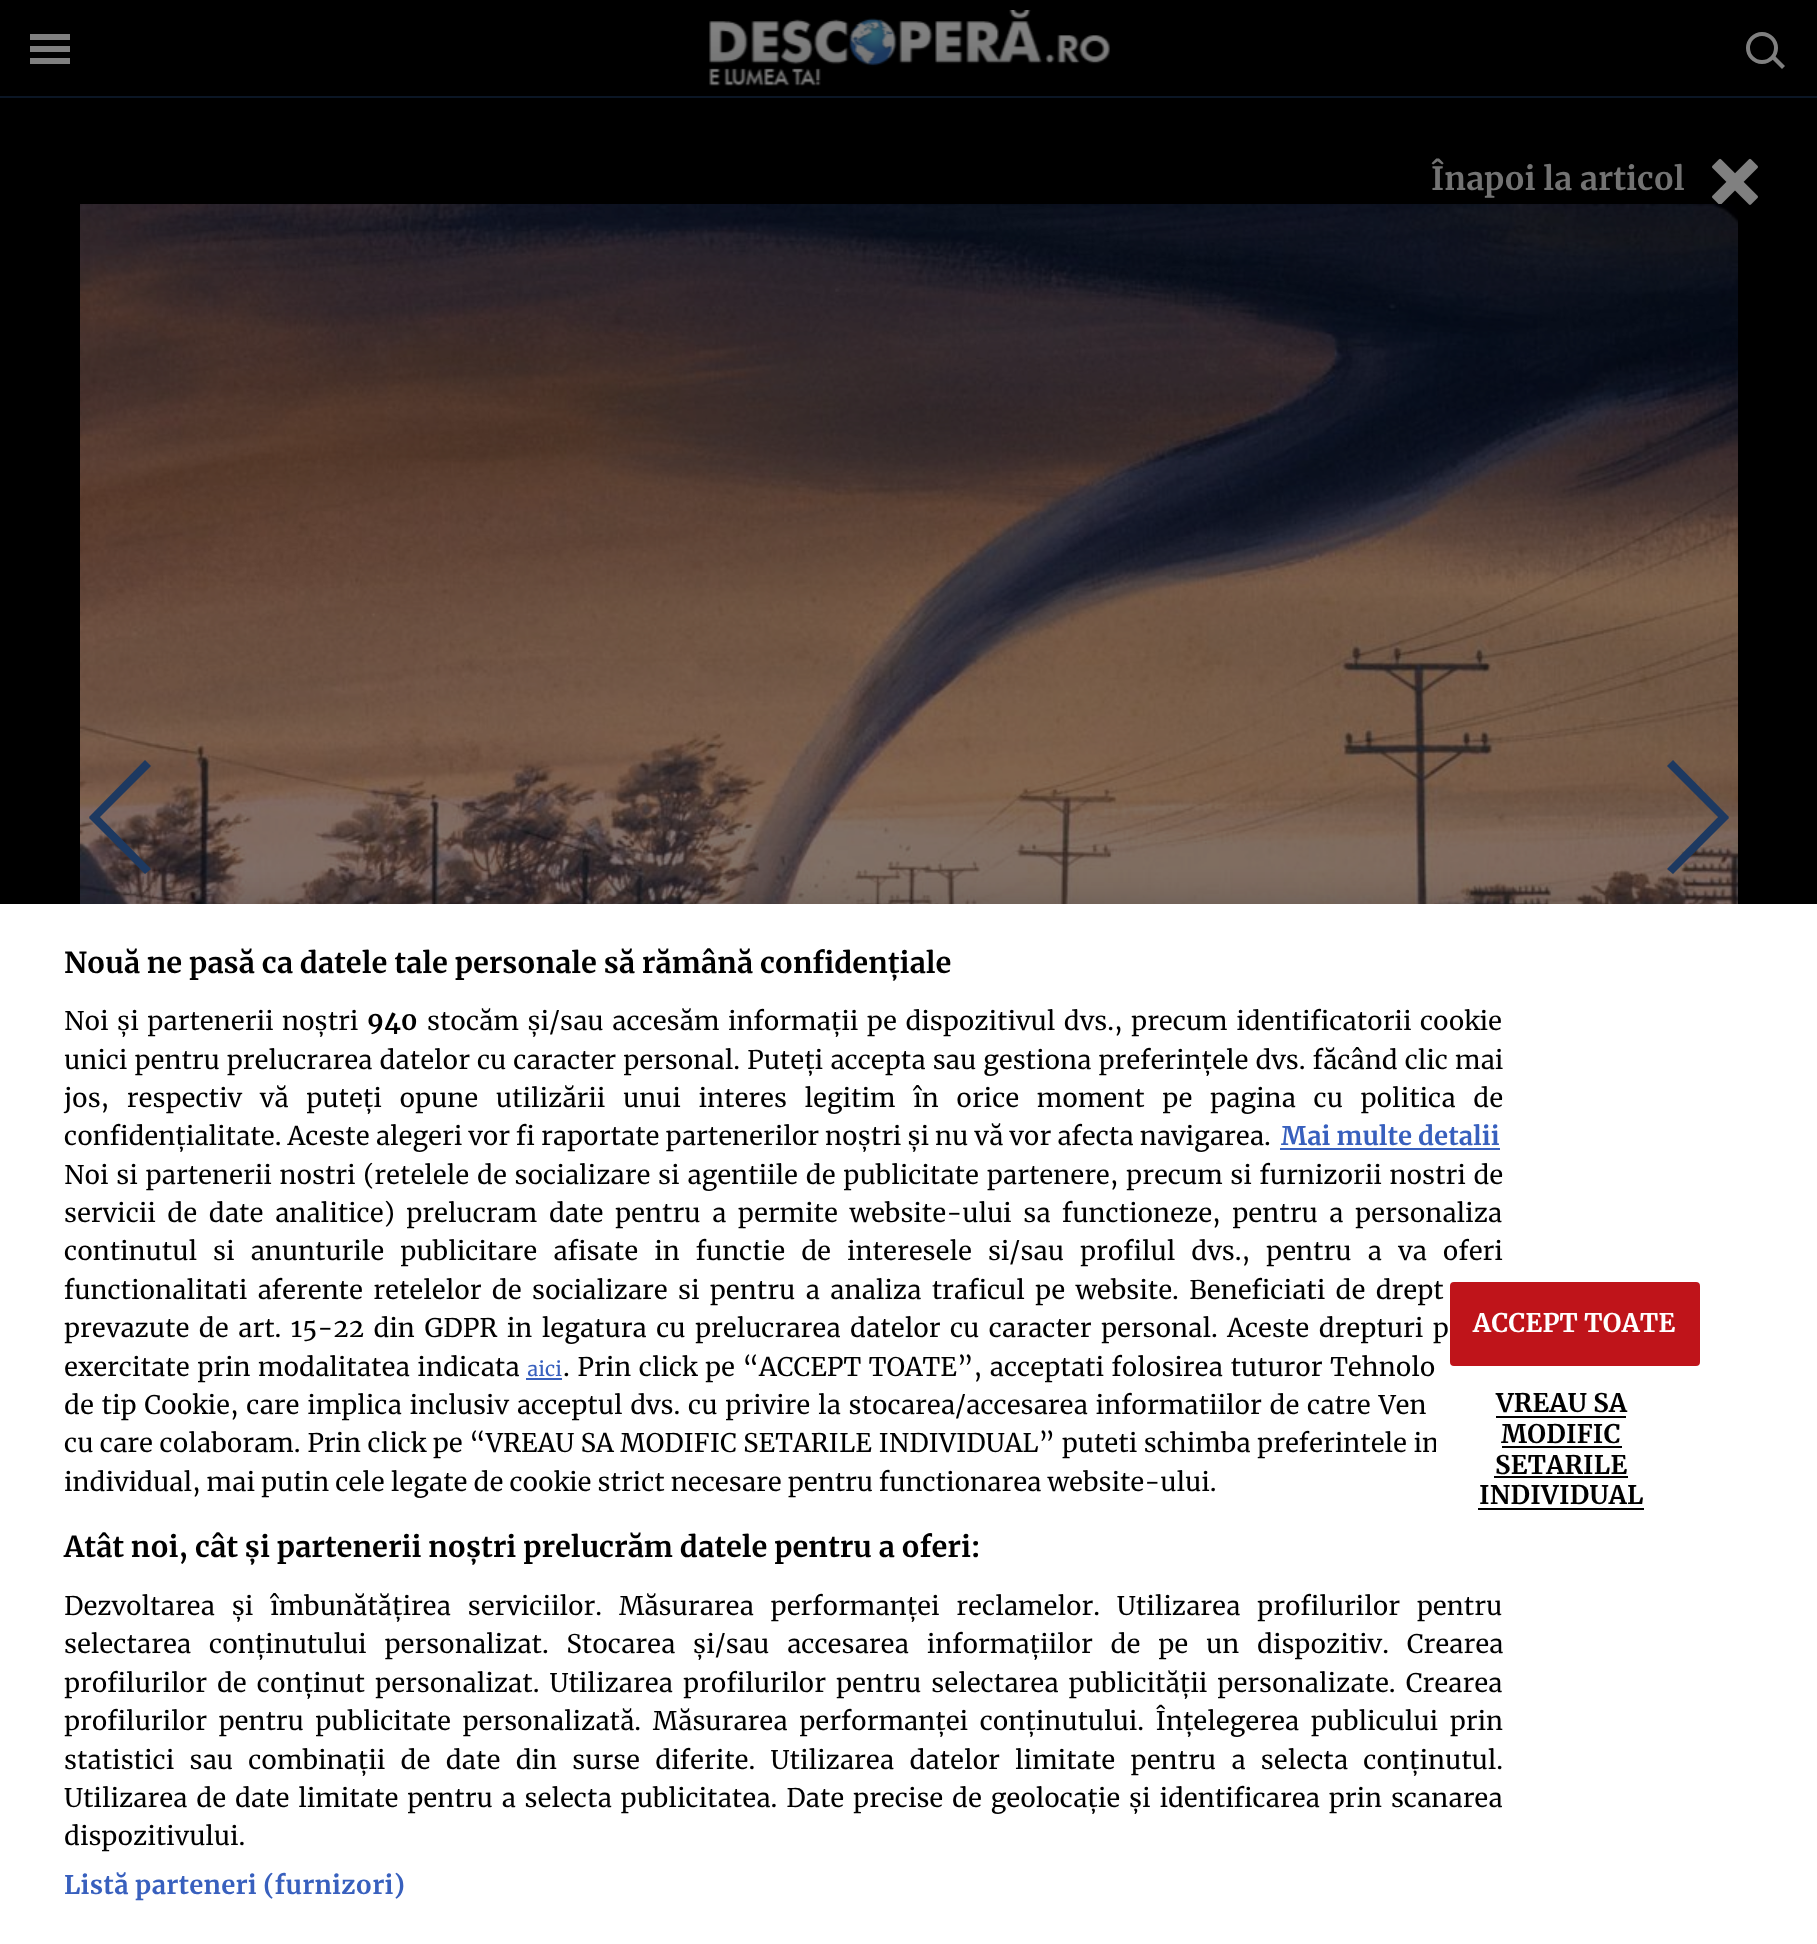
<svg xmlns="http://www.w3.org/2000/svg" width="1817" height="1944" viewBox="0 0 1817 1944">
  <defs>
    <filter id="blur1" x="-50%" y="-200%" width="200%" height="500%"><feGaussianBlur stdDeviation="18"/></filter>
  </defs>
  <rect width="100%" height="100%" fill="#000000"/>
  <rect x="0" y="96" width="1817" height="2" fill="#0b1625"/>
  <rect x="30" y="46" width="40" height="6" fill="#808080"/>
  <rect x="30" y="34" width="40" height="6" fill="#808080"/>
  <rect x="30" y="58" width="40" height="6" fill="#808080"/>
  <image x="709" y="10" width="401" height="76" href="img1.png"/>
  <circle cx="1762" cy="48" r="14" fill="none" stroke="#808080" stroke-width="4"/>
  <path d="M1771 58L1774 55L1785 66L1782 69Z" fill="#808080"/>
  <text x="1431" y="190" font-family="Merriweather" font-size="32" font-weight="bold" fill="#737373">Înapoi la articol</text>
  <image x="1712" y="158" width="46" height="47" href="img2.png"/>
  <image x="80" y="204" width="1658" height="700" href="img3.png"/>
  <path d="M89 817L145 760L151 766L95 822Z" fill="#1d3961"/>
  <path d="M95 812L151 869L145 874L89 818Z" fill="#1d3961"/>
  <path d="M1673 760L1729 817L1723 822L1667 766Z" fill="#1d3961"/>
  <path d="M1667 869L1723 812L1729 818L1673 874Z" fill="#1d3961"/>
  <rect x="0" y="904" width="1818" height="1040" fill="#000000" fill-opacity="0.2" filter="url(#blur1)"/>
  <rect x="0" y="904" width="1817" height="1040" fill="#ffffff"/>
  <text x="64" y="973" font-family="Merriweather" font-size="28.8" font-weight="bold" fill="#000000">Nouă ne pasă ca datele tale personale să rămână confidențiale</text>
  <text x="64" y="1030" word-spacing="2.5" font-family="Merriweather" font-size="25.6" fill="#000000">Noi și partenerii noștri</text>
  <text x="367" y="1030" font-family="Merriweather" font-size="25.6" font-weight="bold" fill="#000000">940</text>
  <text x="427" y="1030" word-spacing="2.5" font-family="Merriweather" font-size="25.6" fill="#000000">stocăm și/sau accesăm informații pe dispozitivul dvs., precum identificatorii cookie</text>
  <text x="64" y="1069" word-spacing="1" font-family="Merriweather" font-size="25.6" fill="#000000">unici pentru prelucrarea datelor cu caracter personal. Puteți accepta sau gestiona preferințele dvs. făcând clic mai</text>
  <text x="64" y="1107" word-spacing="11.6" font-family="Merriweather" font-size="25.6" fill="#000000">jos, respectiv vă puteți opune utilizării unui interes legitim în orice moment pe pagina cu politica de</text>
  <text x="64" y="1145" font-family="Merriweather" font-size="25.6" fill="#000000">confidențialitate. Aceste alegeri vor fi raportate partenerilor noștri și nu vă vor afecta navigarea.</text>
  <text x="1281" y="1145" font-family="Merriweather" font-size="25.6" font-weight="bold" fill="#3860be">Mai multe detalii</text>
  <rect x="1280" y="1148" width="220" height="2" fill="#3860be"/>
  <text x="64" y="1184" word-spacing="1.7" font-family="Merriweather" font-size="25.6" fill="#000000">Noi si partenerii nostri (retelele de socializare si agentiile de publicitate partenere, precum si furnizorii nostri de</text>
  <text x="64" y="1222" word-spacing="5.5" font-family="Merriweather" font-size="25.6" fill="#000000">servicii de date analitice) prelucram date pentru a permite website-ului sa functioneze, pentru a personaliza</text>
  <text x="64" y="1260" word-spacing="10" font-family="Merriweather" font-size="25.6" fill="#000000">continutul si anunturile publicitare afisate in functie de interesele si/sau profilul dvs., pentru a va oferi</text>
  <text x="64" y="1299" word-spacing="4.25" font-family="Merriweather" font-size="25.6" fill="#000000">functionalitati aferente retelelor de socializare si pentru a analiza traficul pe website. Beneficiati de drept</text>
  <text x="64" y="1337" word-spacing="3.4" font-family="Merriweather" font-size="25.6" fill="#000000">prevazute de art. 15-22 din GDPR in legatura cu prelucrarea datelor cu caracter personal. Aceste drepturi p</text>
  <text x="64" y="1376" word-spacing="1.5" font-family="Merriweather" font-size="25.6" fill="#000000">exercitate prin modalitatea indicata</text>
  <text x="527" y="1376" font-family="Merriweather" font-size="20" fill="#3860be">aici</text>
  <rect x="526" y="1378" width="36" height="2" fill="#3860be"/>
  <text x="563" y="1376" word-spacing="1.5" font-family="Merriweather" font-size="25.6" fill="#000000">. Prin click pe “ACCEPT TOATE”, acceptati folosirea tuturor Tehnolo</text>
  <text x="64" y="1414" word-spacing="1.7" font-family="Merriweather" font-size="25.6" fill="#000000">de tip Cookie, care implica inclusiv acceptul dvs. cu privire la stocarea/accesarea informatiilor de catre Ven</text>
  <text x="64" y="1452" word-spacing="0.5" font-family="Merriweather" font-size="25.6" fill="#000000">cu care colaboram. Prin click pe “VREAU SA MODIFIC SETARILE INDIVIDUAL” puteti schimba preferintele in</text>
  <text x="64" y="1491" font-family="Merriweather" font-size="25.6" fill="#000000">individual, mai putin cele legate de cookie strict necesare pentru functionarea website-ului.</text>
  <text x="64" y="1557" font-family="Merriweather" font-size="28.8" font-weight="bold" fill="#000000">Atât noi, cât și partenerii noștri prelucrăm datele pentru a oferi:</text>
  <text x="64" y="1615" word-spacing="10.75" font-family="Merriweather" font-size="25.6" fill="#000000">Dezvoltarea și îmbunătățirea serviciilor. Măsurarea performanței reclamelor. Utilizarea profilurilor pentru</text>
  <text x="64" y="1653" word-spacing="11.75" font-family="Merriweather" font-size="25.6" fill="#000000">selectarea conținutului personalizat. Stocarea și/sau accesarea informațiilor de pe un dispozitiv. Crearea</text>
  <text x="64" y="1692" word-spacing="4" font-family="Merriweather" font-size="25.6" fill="#000000">profilurilor de conținut personalizat. Utilizarea profilurilor pentru selectarea publicității personalizate. Crearea</text>
  <text x="64" y="1730" word-spacing="5.5" font-family="Merriweather" font-size="25.6" fill="#000000">profilurilor pentru publicitate personalizată. Măsurarea performanței conținutului. Înțelegerea publicului prin</text>
  <text x="64" y="1769" word-spacing="9.25" font-family="Merriweather" font-size="25.6" fill="#000000">statistici sau combinații de date din surse diferite. Utilizarea datelor limitate pentru a selecta conținutul.</text>
  <text x="64" y="1807" word-spacing="2.75" font-family="Merriweather" font-size="25.6" fill="#000000">Utilizarea de date limitate pentru a selecta publicitatea. Date precise de geolocație și identificarea prin scanarea</text>
  <text x="64" y="1845" font-family="Merriweather" font-size="25.6" fill="#000000">dispozitivului.</text>
  <text x="64" y="1894" font-family="Merriweather" font-size="25.6" font-weight="bold" letter-spacing="0.25" fill="#3860be">Listă parteneri (furnizori)</text>
  <rect x="1451" y="1283" width="248" height="82" rx="3" fill="#bf141a" stroke="#bf141a" stroke-width="2"/>
  <text x="1473" y="1332" font-family="Merriweather" font-size="25.6" font-weight="bold" letter-spacing="0.25" fill="#ffffff">ACCEPT TOATE</text>
  <rect x="1436" y="1366" width="250" height="170" rx="4" fill="#ffffff"/>
  <text x="1496" y="1412" font-family="Merriweather" font-size="25.6" font-weight="bold" letter-spacing="0.25" fill="#000000">VREAU SA</text>
  <rect x="1496" y="1416" width="130" height="2" fill="#000000"/>
  <text x="1501" y="1443" font-family="Merriweather" font-size="25.6" font-weight="bold" letter-spacing="0.25" fill="#000000">MODIFIC</text>
  <rect x="1502" y="1446" width="120" height="2" fill="#000000"/>
  <text x="1495" y="1474" font-family="Merriweather" font-size="25.6" font-weight="bold" letter-spacing="0.25" fill="#000000">SETARILE</text>
  <rect x="1494" y="1476" width="134" height="2" fill="#000000"/>
  <text x="1479" y="1504" font-family="Merriweather" font-size="25.6" font-weight="bold" letter-spacing="0.25" fill="#000000">INDIVIDUAL</text>
  <rect x="1478" y="1508" width="166" height="2" fill="#000000"/>
</svg>
